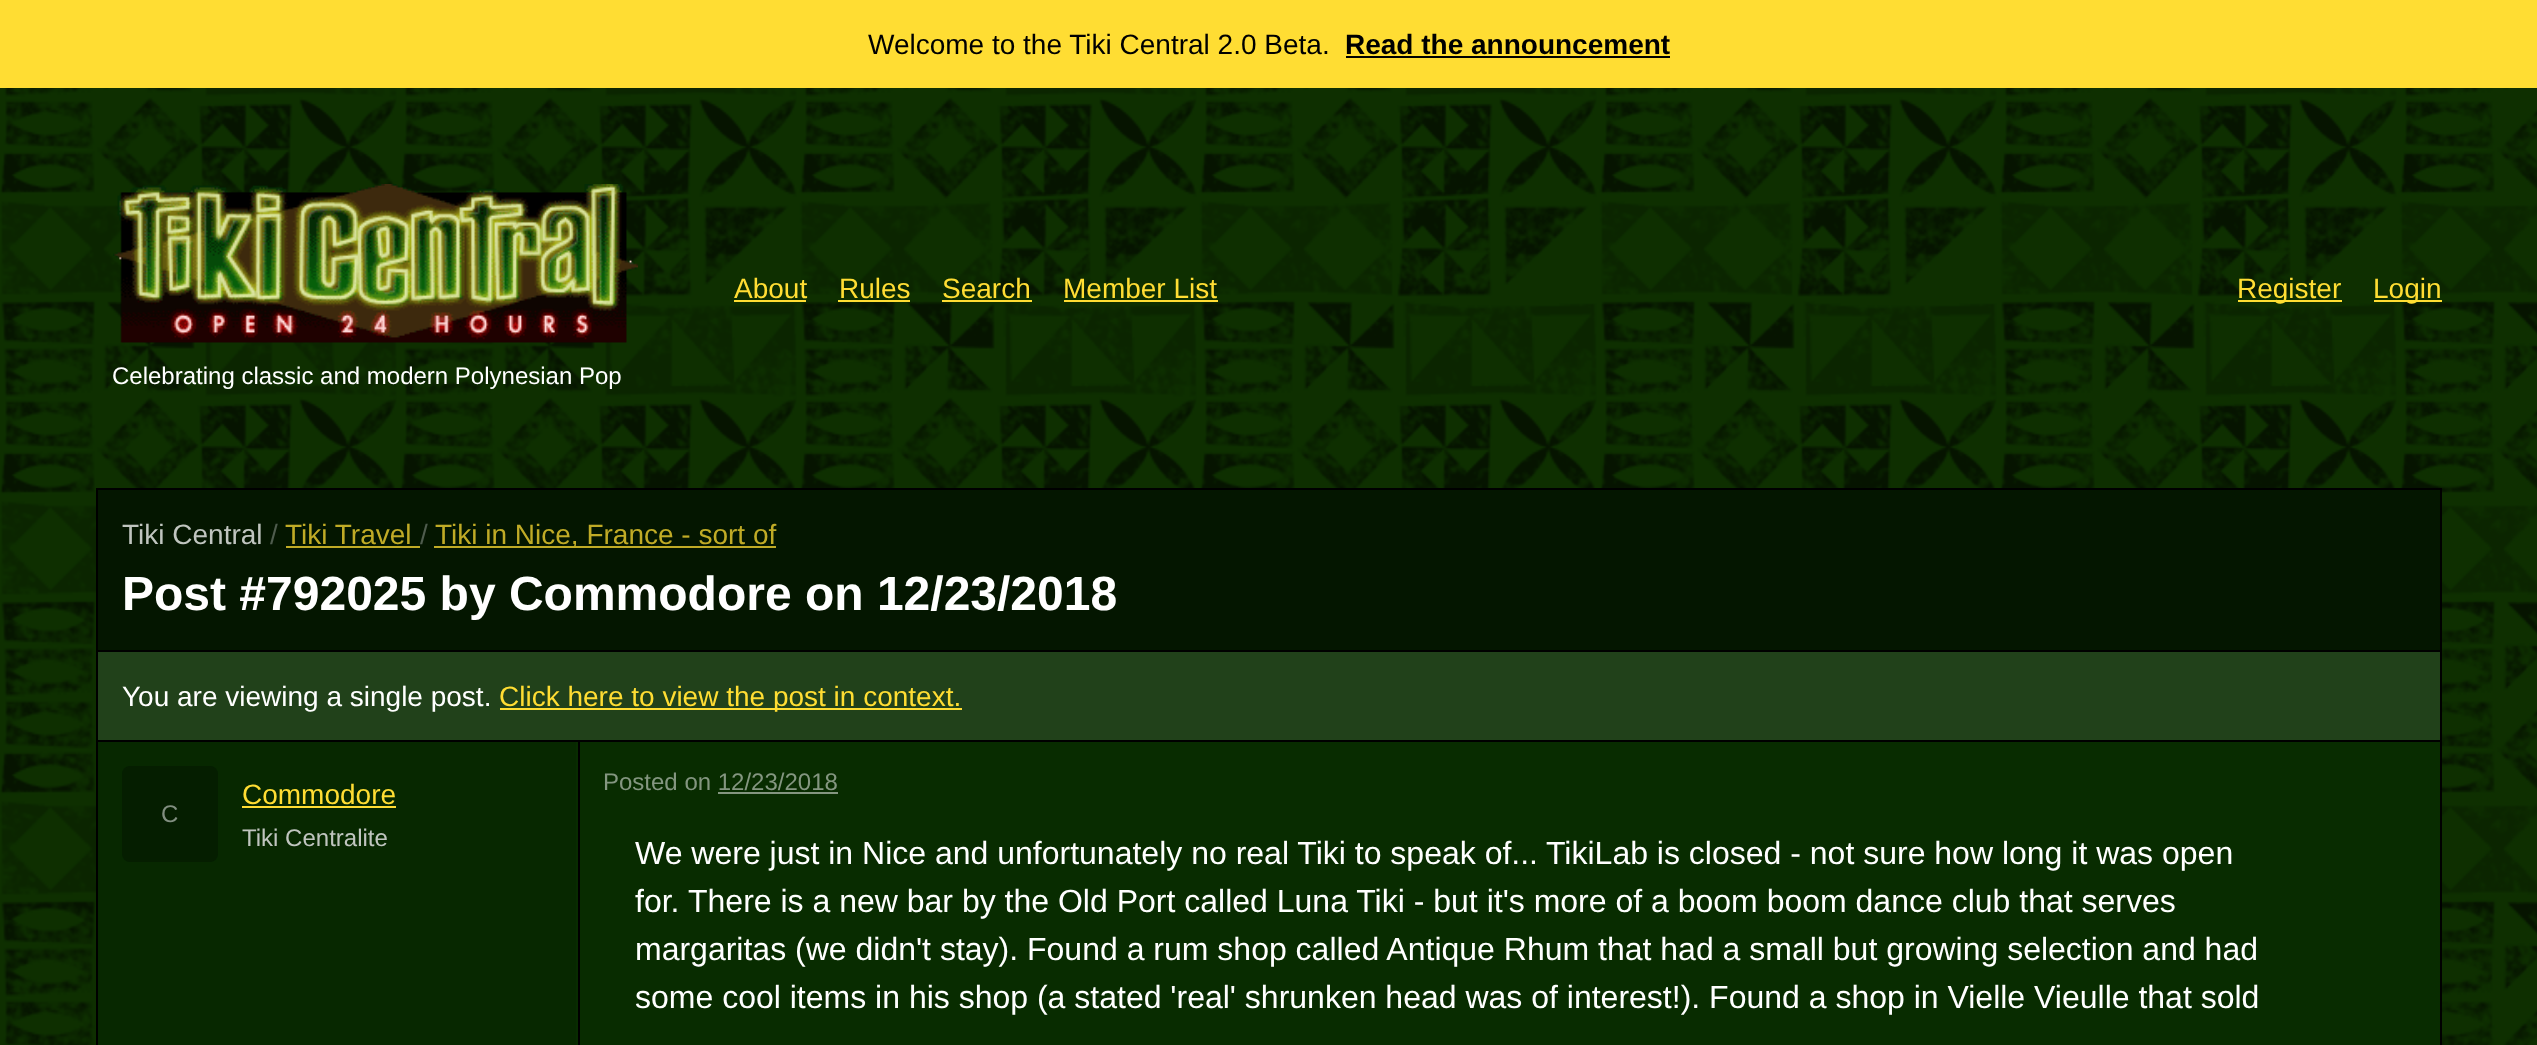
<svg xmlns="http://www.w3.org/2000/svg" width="2537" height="1045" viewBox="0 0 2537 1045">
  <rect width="100%" height="100%" fill="#ffffff"/>
  <image x="0" y="88" width="2537" height="957" href="img1.png"/>
  <rect x="0" y="0" width="2537" height="88" fill="#ffdd33"/>
  <text x="868" y="54" font-family="Liberation Sans" font-size="28" fill="#000000">Welcome to the Tiki Central 2.0 Beta.</text>
  <text x="1345" y="54" font-family="Liberation Sans" font-size="28" font-weight="bold" fill="#000000">Read the announcement</text>
  <rect x="1346" y="56" width="324" height="2" fill="#000000"/>
  <text x="734" y="298" font-family="Liberation Sans" font-size="28" fill="#ffdd33">About</text>
  <rect x="734" y="300" width="72" height="2" fill="#ffdd33"/>
  <text x="839" y="298" font-family="Liberation Sans" font-size="28" fill="#ffdd33">Rules</text>
  <rect x="838" y="300" width="72" height="2" fill="#ffdd33"/>
  <text x="942" y="298" font-family="Liberation Sans" font-size="28" fill="#ffdd33">Search</text>
  <rect x="942" y="300" width="90" height="2" fill="#ffdd33"/>
  <text x="1063" y="298" font-family="Liberation Sans" font-size="28" fill="#ffdd33">Member List</text>
  <rect x="1064" y="300" width="154" height="2" fill="#ffdd33"/>
  <rect x="2238" y="300" width="104" height="2" fill="#ffdd33"/>
  <text x="2237" y="298" font-family="Liberation Sans" font-size="28" fill="#ffdd33">Register</text>
  <rect x="2374" y="300" width="68" height="2" fill="#ffdd33"/>
  <text x="2373" y="298" font-family="Liberation Sans" font-size="28" fill="#ffdd33">Login</text>
  <image x="113" y="184" width="525" height="159" href="img2.png"/>
  <text x="112" y="384" font-family="Liberation Sans" font-size="24" fill="#ffffff">Celebrating classic and modern Polynesian Pop</text>
  <rect x="576" y="742" width="1864" height="303" fill="#082c00"/>
  <rect x="97" y="489" width="2344" height="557" fill="none" stroke="#000000" stroke-width="2"/>
  <rect x="98" y="490" width="2342" height="160" fill="#041600"/>
  <rect x="98" y="650" width="2342" height="2" fill="#000000"/>
  <text x="122" y="544" font-family="Liberation Sans" font-size="28" fill="#c0c5bf">Tiki Central</text>
  <text x="270" y="544" font-family="Liberation Sans" font-size="28" fill="#4f5c4d">/</text>
  <text x="285" y="544" font-family="Liberation Sans" font-size="28" fill="#c0ab26">Tiki Travel</text>
  <rect x="286" y="546" width="134" height="2" fill="#c0ab26"/>
  <text x="420" y="544" font-family="Liberation Sans" font-size="28" fill="#4f5c4d">/</text>
  <rect x="434" y="546" width="342" height="2" fill="#c0ab26"/>
  <text x="435" y="544" font-family="Liberation Sans" font-size="28" fill="#c0ab26">Tiki in Nice, France - sort of</text>
  <text x="122" y="610" font-family="Liberation Sans" font-size="48" font-weight="bold" fill="#ffffff">Post #792025 by Commodore on 12/23/2018</text>
  <rect x="98" y="652" width="2342" height="88" fill="#21411a"/>
  <rect x="98" y="740" width="2342" height="2" fill="#000000"/>
  <text x="122" y="706" font-family="Liberation Sans" font-size="28" fill="#ffffff">You are viewing a single post.</text>
  <rect x="500" y="708" width="462" height="2" fill="#ffdd33"/>
  <text x="499" y="706" font-family="Liberation Sans" font-size="28" fill="#ffdd33">Click here to view the post in context.</text>
  <rect x="98" y="742" width="478" height="303" fill="#072800"/>
  <rect x="578" y="742" width="2" height="303" fill="#000000"/>
  <rect x="122" y="766" width="96" height="96" rx="8" fill="#051e00"/>
  <text x="161" y="822" font-family="Liberation Sans" font-size="24" fill="#828f80">C</text>
  <text x="242" y="804" font-family="Liberation Sans" font-size="28" fill="#ffdd33">Commodore</text>
  <rect x="242" y="806" width="154" height="2" fill="#ffdd33"/>
  <text x="242" y="846" font-family="Liberation Sans" font-size="24" fill="#c0c5bf">Tiki Centralite</text>
  <text x="603" y="790" font-family="Liberation Sans" font-size="24" fill="#849680">Posted on 12/23/2018</text>
  <rect x="718" y="792" width="120" height="2" fill="#849680"/>
  <text x="635" y="864" font-family="Liberation Sans" font-size="32" fill="#ffffff">We were just in Nice and unfortunately no real Tiki to speak of...</text>
  <text x="1546" y="864" font-family="Liberation Sans" font-size="32" fill="#ffffff">TikiLab is closed - not sure how long it was open</text>
  <text x="635" y="912" font-family="Liberation Sans" font-size="32" fill="#ffffff">for.</text>
  <text x="688" y="912" font-family="Liberation Sans" font-size="32" fill="#ffffff">There is a new bar by the Old Port called Luna Tiki - but it's more of a boom boom dance club that serves</text>
  <text x="635" y="960" font-family="Liberation Sans" font-size="32" fill="#ffffff">margaritas (we didn't stay). Found a rum shop called Antique Rhum that had a small but growing selection and had</text>
  <text x="635" y="1008" font-family="Liberation Sans" font-size="32" fill="#ffffff">some cool items in his shop (a stated 'real' shrunken head was of interest!). Found a shop in Vielle Vieulle that sold</text>
</svg>
